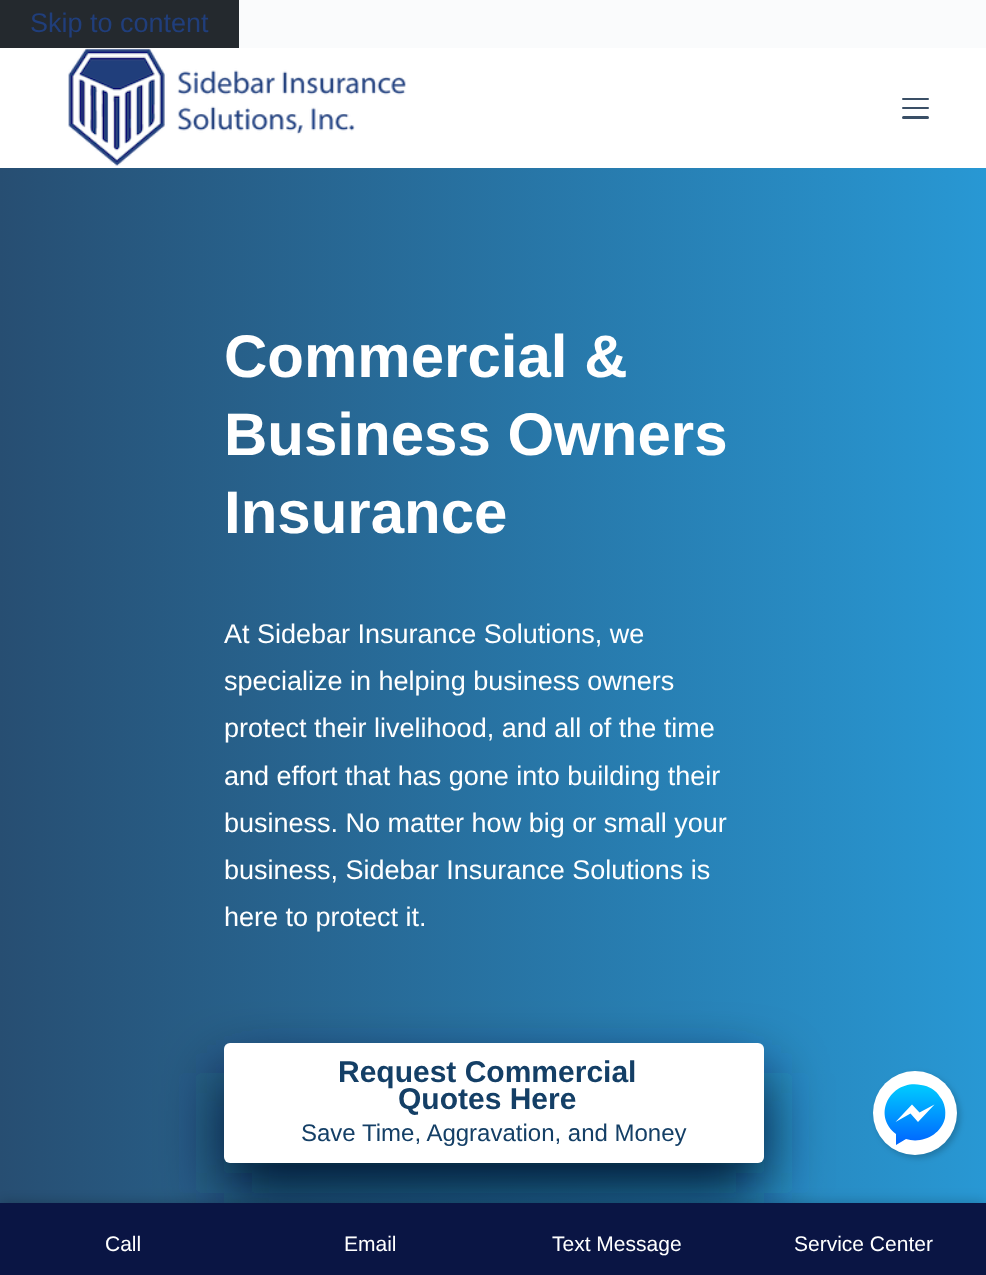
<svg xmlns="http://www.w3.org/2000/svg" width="986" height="1275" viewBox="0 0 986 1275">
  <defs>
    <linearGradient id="g1" gradientUnits="userSpaceOnUse" x1="0" y1="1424" x2="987" y2="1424"><stop offset="0" stop-color="#274e72"/><stop offset="1" stop-color="#2898d4"/></linearGradient>
    <filter id="blur1" x="-50%" y="-200%" width="200%" height="500%"><feGaussianBlur stdDeviation="30"/></filter>
    <filter id="blur2" x="-50%" y="-200%" width="200%" height="500%"><feGaussianBlur stdDeviation="7"/></filter>
    <filter id="blur3" x="-50%" y="-200%" width="200%" height="500%"><feGaussianBlur stdDeviation="3"/></filter>
    <linearGradient id="g2" gradientUnits="userSpaceOnUse" x1="915" y1="1088" x2="915" y2="1142"><stop offset="0" stop-color="#00c6ff"/><stop offset="1" stop-color="#0068ff"/></linearGradient>
  </defs>
  <rect width="100%" height="100%" fill="#fafbfc"/>
  <rect x="0" y="0" width="239" height="48" fill="#24292e"/>
  <text x="30" y="32" font-family="Liberation Sans" font-size="27" fill="#203e7b">Skip to content</text>
  <rect x="0" y="48" width="986" height="120" fill="#ffffff"/>
  <image x="68" y="48" width="338" height="118" href="img1.png"/>
  <rect x="902" y="98" width="27" height="2" rx="1" fill="#3a4f66"/>
  <rect x="902" y="107" width="27" height="2" rx="1" fill="#3a4f66"/>
  <rect x="902" y="116" width="27" height="3" rx="1.5" fill="#3a4f66"/>
  <rect x="0" y="168" width="986" height="1035" fill="url(#g1)"/>
  <text x="224" y="377" font-family="Liberation Sans" font-size="60" font-weight="bold" fill="#ffffff">Commercial &amp;</text>
  <text x="224" y="455" font-family="Liberation Sans" font-size="60" font-weight="bold" fill="#ffffff">Business Owners</text>
  <text x="224" y="533" font-family="Liberation Sans" font-size="60" font-weight="bold" fill="#ffffff">Insurance</text>
  <text x="224" y="643" font-family="Liberation Sans" font-size="27" fill="#ffffff">At Sidebar Insurance Solutions, we</text>
  <text x="224" y="690" font-family="Liberation Sans" font-size="27" fill="#ffffff">specialize in helping business owners</text>
  <text x="224" y="737" font-family="Liberation Sans" font-size="27" fill="#ffffff">protect their livelihood, and all of the time</text>
  <text x="224" y="785" font-family="Liberation Sans" font-size="27" fill="#ffffff">and effort that has gone into building their</text>
  <text x="224" y="832" font-family="Liberation Sans" font-size="27" fill="#ffffff">business. No matter how big or small your</text>
  <text x="224" y="879" font-family="Liberation Sans" font-size="27" fill="#ffffff">business, Sidebar Insurance Solutions is</text>
  <text x="224" y="926" font-family="Liberation Sans" font-size="27" fill="#ffffff">here to protect it.</text>
  <rect x="224" y="1073" width="540" height="120" rx="6" fill="#001c35" filter="url(#blur1)"/>
  <rect x="224" y="1043" width="540" height="120" rx="6" fill="#ffffff"/>
  <text x="338" y="1082" font-family="Liberation Sans" font-size="30" font-weight="bold" fill="#143f66">Request Commercial</text>
  <text x="398" y="1109" font-family="Liberation Sans" font-size="30" font-weight="bold" fill="#143f66">Quotes Here</text>
  <text x="301" y="1141" font-family="Liberation Sans" font-size="24" fill="#143f66">Save Time, Aggravation, and Money</text>
  <rect x="0" y="1203" width="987" height="72" fill="#000000" fill-opacity="0.25" filter="url(#blur2)"/>
  <rect x="0" y="1203" width="986" height="72" fill="#0a1544"/>
  <text x="105" y="1251" font-family="Liberation Sans" font-size="21" fill="#ffffff">Call</text>
  <text x="344" y="1251" font-family="Liberation Sans" font-size="21" fill="#ffffff">Email</text>
  <text x="552" y="1251" font-family="Liberation Sans" font-size="21" fill="#ffffff">Text Message</text>
  <text x="794" y="1251" font-family="Liberation Sans" font-size="21" fill="#ffffff">Service Center</text>
  <rect x="876" y="1074" width="84" height="84" rx="42" fill="#000000" fill-opacity="0.2" filter="url(#blur3)"/>
  <circle cx="915" cy="1113" r="42" fill="#ffffff"/>
  <path d="M896 1134V1145L906 1139C922 1144 941 1135 945 1118C946 1111 945 1103 940 1097C936 1090 929 1086 921 1085C891 1079 871 1115 896 1134Z" fill="url(#g2)"/>
  <path d="M912 1104.5L895.5 1122L910.5 1113.5L918 1122L934.5 1104.5L919.5 1112.5Z" fill="#ffffff"/>
</svg>
